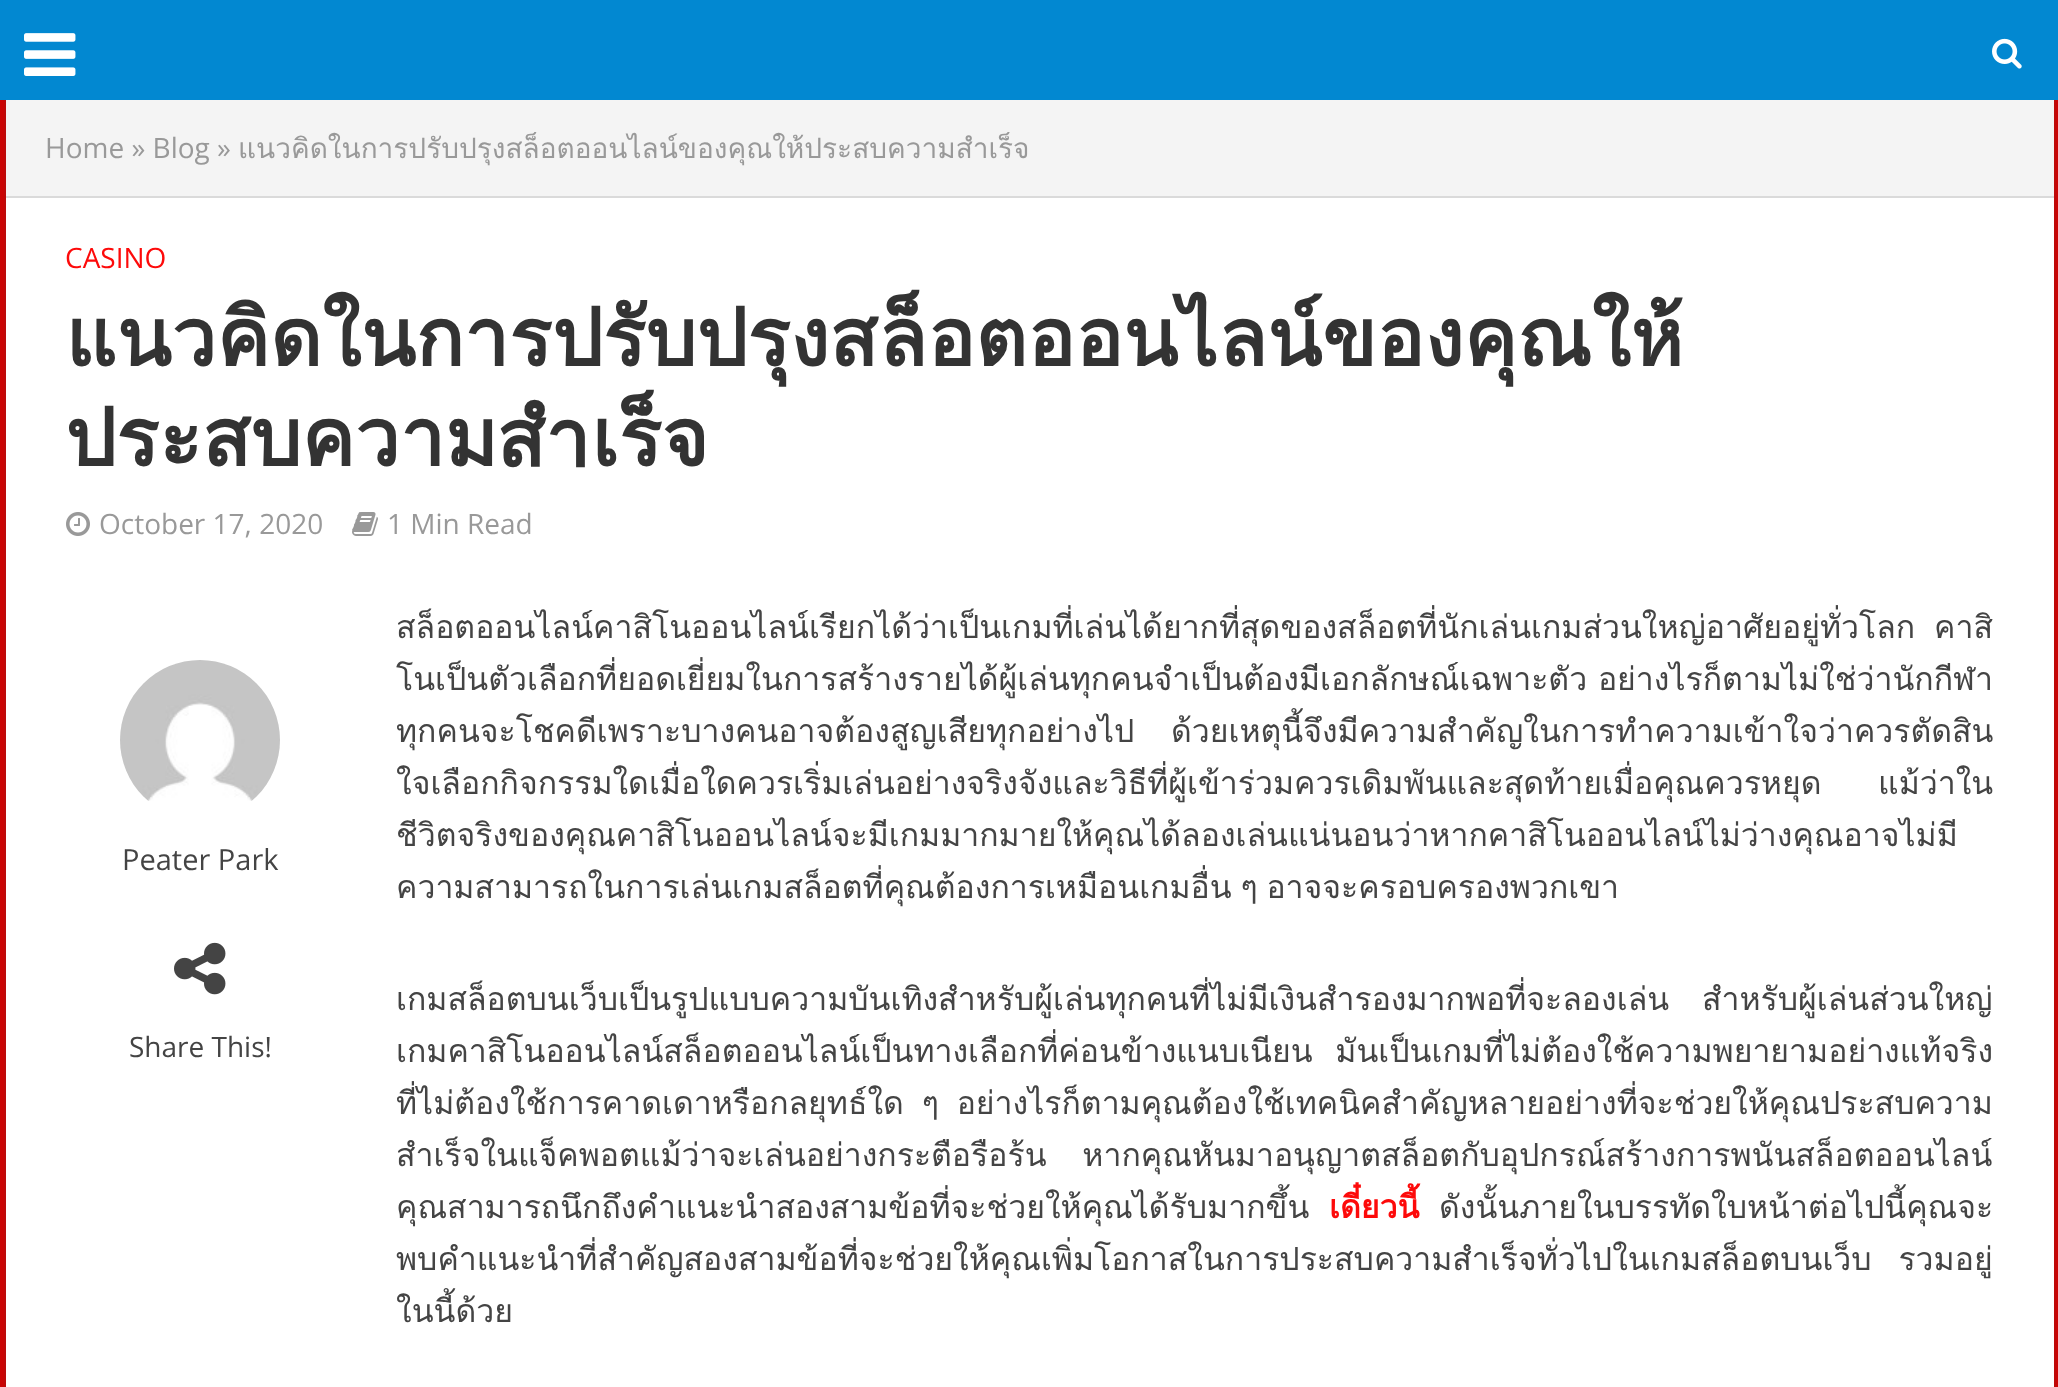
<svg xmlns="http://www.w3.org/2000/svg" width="2058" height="1387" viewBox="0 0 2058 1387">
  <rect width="100%" height="100%" fill="#ca0404"/>
  <rect x="5" y="99" width="2050" height="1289" fill="none" stroke="#bd0a0a" stroke-width="2"/>
  <rect x="0" y="0" width="2058" height="100" fill="#0288d1"/>
  <image x="24" y="33" width="52" height="43" href="img1.png"/>
  <image x="1992" y="38" width="30" height="31" href="img2.png"/>
  <rect x="6" y="198" width="2048" height="1189" fill="#ffffff"/>
  <rect x="6" y="100" width="2048" height="96" fill="#f4f4f4"/>
  <rect x="6" y="196" width="2048" height="2" fill="#dadada"/>
  <text x="45" y="158" font-family="Open Sans" font-size="28" fill="#999999">Home » Blog »</text>
  <text x="238" y="158" font-family="Loma" font-size="28" fill="#999999">แนวคิดในการปรับปรุงสล็อตออนไลน์ของคุณให้ประสบความสำเร็จ</text>
  <text x="65" y="268" font-family="Open Sans" font-size="28" fill="#fd0a0a">CASINO</text>
  <text x="65" y="366" font-family="Loma" font-size="80" font-weight="bold" fill="#333333">แนวคิดในการปรับปรุงสล็อตออนไลน์ของคุณให้</text>
  <text x="65" y="466" font-family="Loma" font-size="80" font-weight="bold" fill="#333333">ประสบความสำเร็จ</text>
  <image x="66" y="512" width="24" height="24" href="img3.png"/>
  <text x="99" y="534" font-family="Open Sans" font-size="28" fill="#999999">October 17, 2020</text>
  <image x="352" y="512" width="26" height="24" href="img4.png"/>
  <text x="387" y="534" font-family="Open Sans" font-size="28" fill="#999999">1 Min Read</text>
  <image x="120" y="660" width="160" height="141" href="img5.png"/>
  <text x="122" y="870" font-family="Open Sans" font-size="29" fill="#444444">Peater Park</text>
  <image x="174" y="942" width="52" height="53" href="img6.png"/>
  <text x="129" y="1057" font-family="Open Sans" font-size="28" fill="#444444">Share This!</text>
  <text x="396" y="638" font-family="Loma" font-size="32" fill="#444444">สล็อตออนไลน์คาสิโนออนไลน์เรียกได้ว่าเป็นเกมที่เล่นได้ยากที่สุดของสล็อตที่นักเล่นเกมส่วนใหญ่อาศัยอยู่ทั่วโลก</text>
  <text x="1934" y="638" font-family="Loma" font-size="32" fill="#444444">คาสิ</text>
  <text x="396" y="690" font-family="Loma" font-size="32" fill="#444444">โนเป็นตัวเลือกที่ยอดเยี่ยมในการสร้างรายได้ผู้เล่นทุกคนจำเป็นต้องมีเอกลักษณ์เฉพาะตัว อย่างไรก็ตามไม่ใช่ว่านักกีฬา</text>
  <text x="396" y="742" font-family="Loma" font-size="32" fill="#444444">ทุกคนจะโชคดีเพราะบางคนอาจต้องสูญเสียทุกอย่างไป</text>
  <text x="1171" y="742" font-family="Loma" font-size="32" fill="#444444">ด้วยเหตุนี้จึงมีความสำคัญในการทำความเข้าใจว่าควรตัดสิน</text>
  <text x="396" y="794" font-family="Loma" font-size="32" fill="#444444">ใจเลือกกิจกรรมใดเมื่อใดควรเริ่มเล่นอย่างจริงจังและวิธีที่ผู้เข้าร่วมควรเดิมพันและสุดท้ายเมื่อคุณควรหยุด</text>
  <text x="1878" y="794" font-family="Loma" font-size="32" fill="#444444">แม้ว่าใน</text>
  <text x="396" y="846" font-family="Loma" font-size="32" fill="#444444">ชีวิตจริงของคุณคาสิโนออนไลน์จะมีเกมมากมายให้คุณได้ลองเล่นแน่นอนว่าหากคาสิโนออนไลน์ไม่ว่างคุณอาจไม่มี</text>
  <text x="396" y="898" word-spacing="-2" font-family="Loma" font-size="32" fill="#444444">ความสามารถในการเล่นเกมสล็อตที่คุณต้องการเหมือนเกมอื่น ๆ อาจจะครอบครองพวกเขา</text>
  <text x="396" y="1010" word-spacing="22" font-family="Loma" font-size="32" fill="#444444">เกมสล็อตบนเว็บเป็นรูปแบบความบันเทิงสำหรับผู้เล่นทุกคนที่ไม่มีเงินสำรองมากพอที่จะลองเล่น สำหรับผู้เล่นส่วนใหญ่</text>
  <text x="396" y="1062" word-spacing="12" font-family="Loma" font-size="32" fill="#444444">เกมคาสิโนออนไลน์สล็อตออนไลน์เป็นทางเลือกที่ค่อนข้างแนบเนียน มันเป็นเกมที่ไม่ต้องใช้ความพยายามอย่างแท้จริง</text>
  <text x="396" y="1114" word-spacing="7" font-family="Loma" font-size="32" fill="#444444">ที่ไม่ต้องใช้การคาดเดาหรือกลยุทธ์ใด ๆ อย่างไรก็ตามคุณต้องใช้เทคนิคสำคัญหลายอย่างที่จะช่วยให้คุณประสบความ</text>
  <text x="396" y="1166" word-spacing="25" font-family="Loma" font-size="32" fill="#444444">สำเร็จในแจ็คพอตแม้ว่าจะเล่นอย่างกระตือรือร้น หากคุณหันมาอนุญาตสล็อตกับอุปกรณ์สร้างการพนันสล็อตออนไลน์</text>
  <text x="396" y="1218" font-family="Loma" font-size="32" fill="#444444">คุณสามารถนึกถึงคำแนะนำสองสามข้อที่จะช่วยให้คุณได้รับมากขึ้น</text>
  <text x="1329" y="1218" font-family="Loma" font-size="32" font-weight="bold" fill="#fd0a0a">เดี๋ยวนี้</text>
  <text x="1439" y="1218" font-family="Loma" font-size="32" fill="#444444">ดังนั้นภายในบรรทัดใบหน้าต่อไปนี้คุณจะ</text>
  <text x="396" y="1270" word-spacing="16" font-family="Loma" font-size="32" fill="#444444">พบคำแนะนำที่สำคัญสองสามข้อที่จะช่วยให้คุณเพิ่มโอกาสในการประสบความสำเร็จทั่วไปในเกมสล็อตบนเว็บ รวมอยู่</text>
  <text x="396" y="1322" font-family="Loma" font-size="32" fill="#444444">ในนี้ด้วย</text>
</svg>
